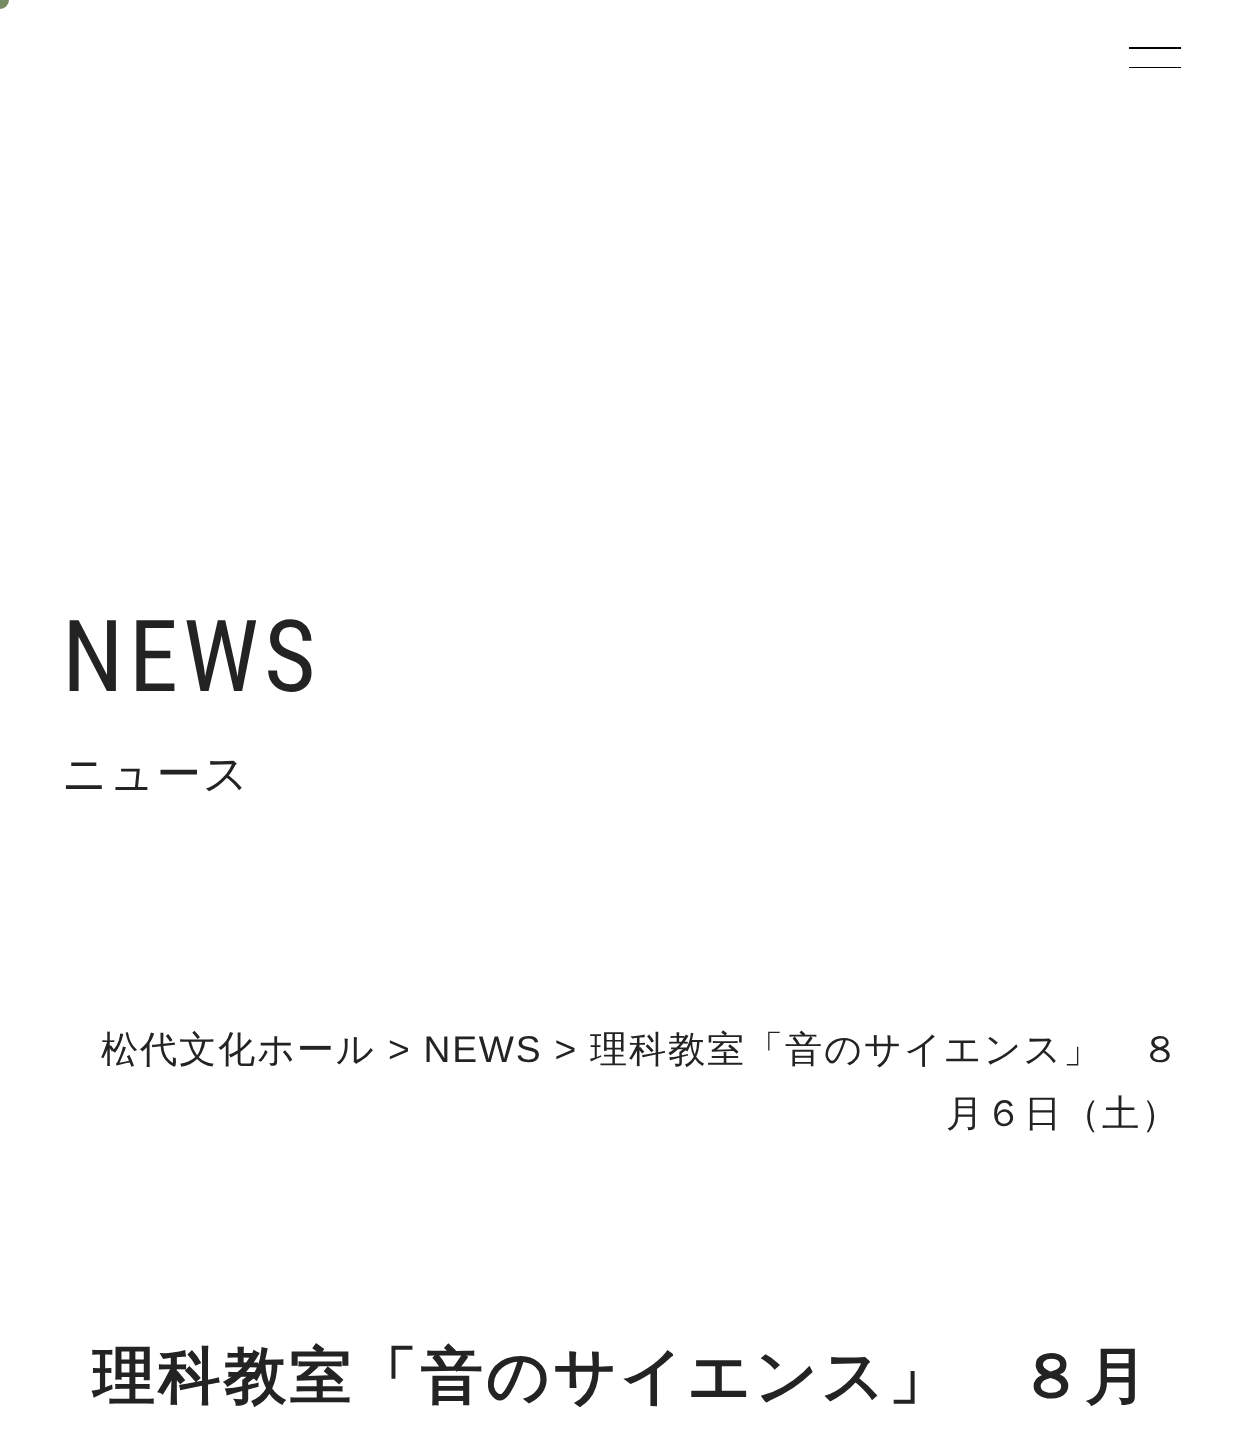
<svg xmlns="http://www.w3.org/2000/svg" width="1241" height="1449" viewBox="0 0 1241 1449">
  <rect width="100%" height="100%" fill="#ffffff"/>
  <circle cx="0" cy="0" r="9" fill="#788a62"/>
  <rect x="1129" y="47" width="52" height="2" fill="#040000"/>
  <rect x="1129" y="67" width="52" height="1" fill="#040000"/>
  <text x="62" y="691" font-family="Roboto Condensed" font-size="99.5" letter-spacing="5" fill="#232323">NEWS</text>
  <text x="62" y="789" font-family="WenQuanYi Zen Hei" font-size="44.5" font-weight="500" letter-spacing="1.75" fill="#232323">ニュース</text>
  <text x="101" y="1062" font-family="WenQuanYi Zen Hei" font-size="37.25" font-weight="500" letter-spacing="1.75" fill="#232323">松代文化ホール</text>
  <text x="388" y="1062" font-family="Liberation Sans" font-size="37.25" letter-spacing="1.75" fill="#232323">&gt; NEWS &gt;</text>
  <text x="590" y="1062" font-family="WenQuanYi Zen Hei" font-size="37.25" font-weight="500" letter-spacing="1.75" fill="#232323">理科教室「音のサイエンス」　８</text>
  <text x="946" y="1126" font-family="WenQuanYi Zen Hei" font-size="37.25" font-weight="500" letter-spacing="1.75" fill="#232323">月６日（土）</text>
  <text x="92" y="1398" font-family="WenQuanYi Zen Hei" font-size="62.1" font-weight="bold" letter-spacing="3.5" fill="#232323">理科教室「音のサイエンス」　８月</text>
</svg>
